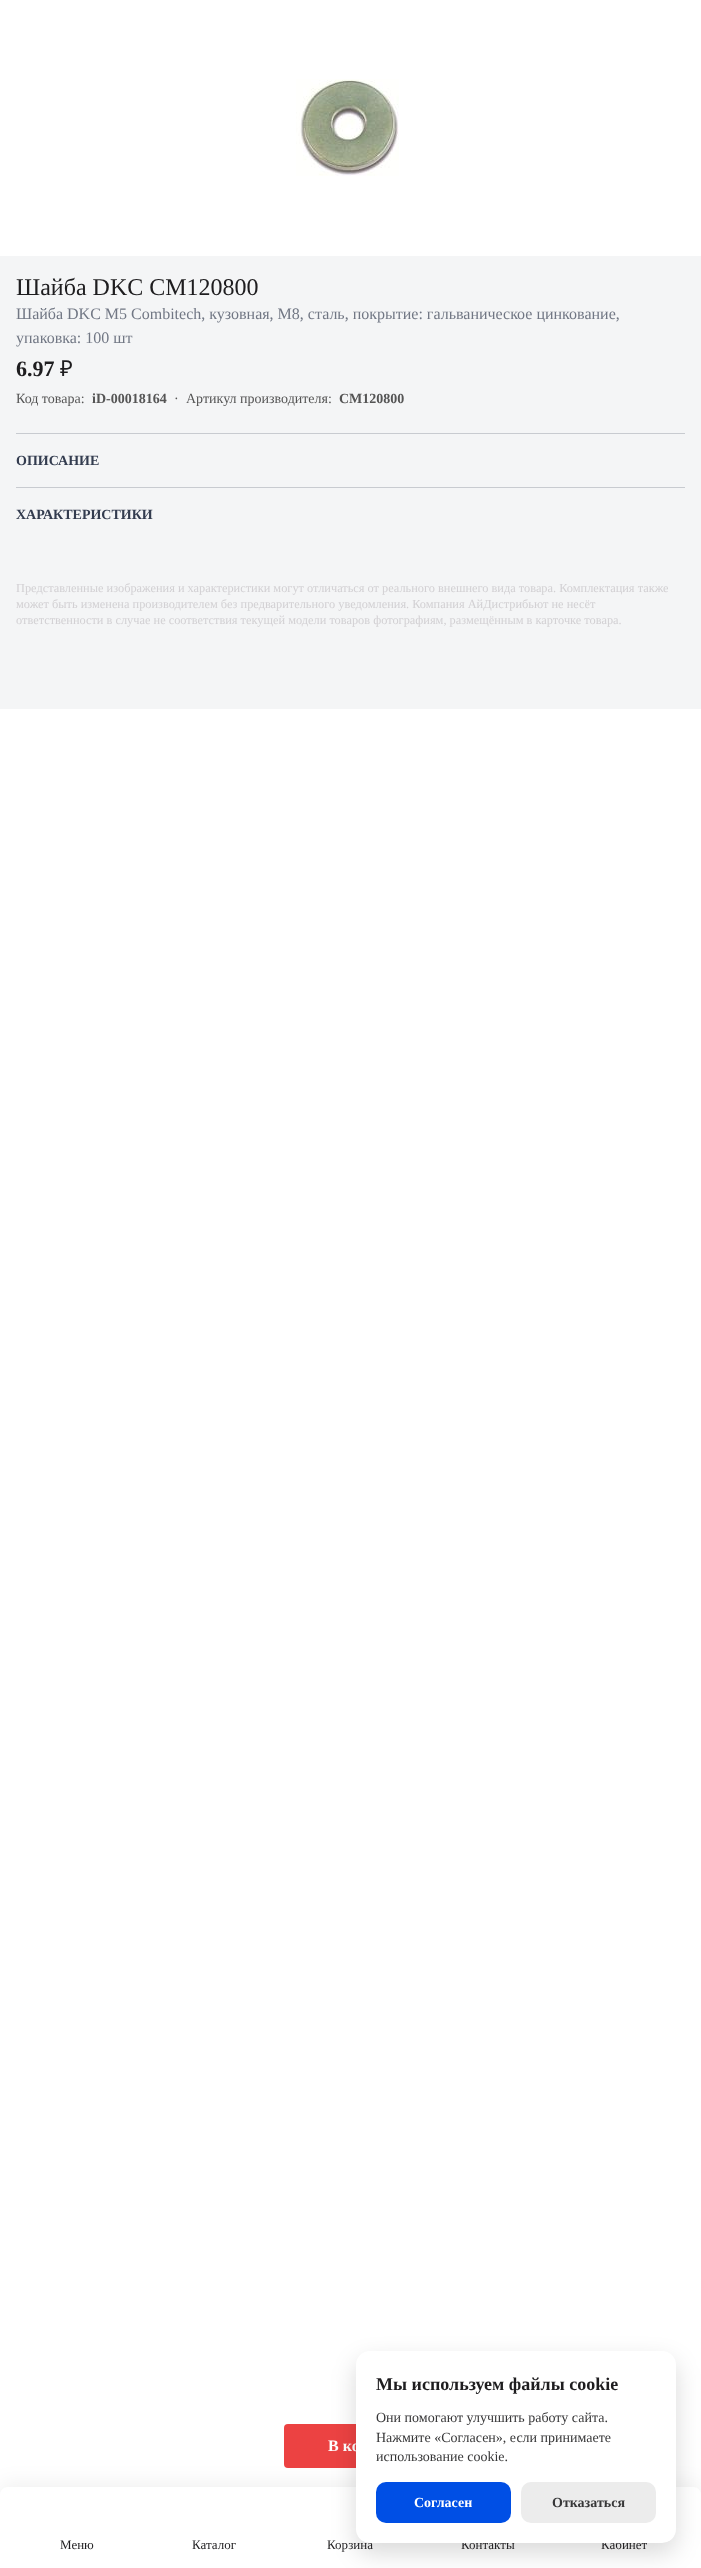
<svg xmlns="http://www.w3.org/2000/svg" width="701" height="2568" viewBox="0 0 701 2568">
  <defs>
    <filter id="blur1" x="-50%" y="-200%" width="200%" height="500%"><feGaussianBlur stdDeviation="10"/></filter>
    <filter id="blur2" x="-50%" y="-200%" width="200%" height="500%"><feGaussianBlur stdDeviation="12.5"/></filter>
  </defs>
  <rect width="100%" height="100%" fill="#ffffff"/>
  <rect x="0" y="256" width="701" height="453" fill="#f4f5f6"/>
  <image x="296" y="79" width="103" height="97" href="img1.png"/>
  <text x="16" y="295" font-family="Liberation Serif" font-size="24" fill="#1e1d1f">Шайба DKC CM120800</text>
  <text x="16" y="319" font-family="Liberation Serif" font-size="16" fill="#717784">Шайба DKC M5 Combitech, кузовная, М8, сталь, покрытие: гальваническое цинкование,</text>
  <text x="16" y="343" font-family="Liberation Serif" font-size="16" fill="#717784">упаковка: 100 шт</text>
  <text x="16" y="376" font-family="Liberation Serif" font-size="22" font-weight="bold" fill="#1e1d1f">6.97</text>
  <text x="60" y="376" font-family="Noto Sans" font-size="22" fill="#1e1d1f">₽</text>
  <text x="16" y="403" font-family="Liberation Serif" font-size="14" fill="#555555">Код товара:</text>
  <text x="92" y="403" font-family="Liberation Serif" font-size="14" font-weight="bold" fill="#555555">iD-00018164</text>
  <text x="174" y="403" font-family="Liberation Serif" font-size="14" fill="#555555">·</text>
  <text x="186" y="403" font-family="Liberation Serif" font-size="14" fill="#555555">Артикул производителя:</text>
  <text x="339" y="403" font-family="Liberation Serif" font-size="14" font-weight="bold" fill="#555555">CM120800</text>
  <rect x="284" y="2424" width="133" height="44" rx="4" fill="#ec4242"/>
  <text x="328" y="2451" font-family="Liberation Serif" font-size="16" font-weight="bold" fill="#ffffff">В ко</text>
  <rect x="16" y="433" width="669" height="1" fill="#c8cbd0"/>
  <text x="16" y="465" font-family="Liberation Serif" font-size="14" font-weight="bold" fill="#333c4f">ОПИСАНИЕ</text>
  <rect x="16" y="487" width="669" height="1" fill="#c8cbd0"/>
  <text x="16" y="519" font-family="Liberation Serif" font-size="14" font-weight="bold" fill="#333c4f">ХАРАКТЕРИСТИКИ</text>
  <text x="16" y="592" font-family="Liberation Serif" font-size="12.35" fill="#d2d0d3">Представленные изображения и характеристики могут отличаться от реального внешнего вида товара. Комплектация также</text>
  <text x="16" y="608" font-family="Liberation Serif" font-size="12.35" fill="#d2d0d3">может быть изменена производителем без предварительного уведомления. Компания АйДистрибьют не несёт</text>
  <text x="16" y="624" font-family="Liberation Serif" font-size="12.35" fill="#d2d0d3">ответственности в случае не соответствия текущей модели товаров фотографиям, размещённым в карточке товара.</text>
  <rect x="0" y="2483" width="701" height="81" rx="8" fill="#101828" fill-opacity="0.06" filter="url(#blur1)"/>
  <path d="M8 2487H693C697.5 2487 701 2490.5 701 2495V2568H0V2495C0 2490.5 3.5 2487 8 2487Z" fill="#ffffff"/>
  <rect x="356" y="2361" width="320" height="192" rx="14" fill="#000000" fill-opacity="0.15" filter="url(#blur2)"/>
  <text x="327" y="2549" font-family="Liberation Serif" font-size="13" fill="#1e1d1f">Корзина</text>
  <text x="461" y="2549" font-family="Liberation Serif" font-size="13" fill="#1e1d1f">Контакты</text>
  <text x="601" y="2549" font-family="Liberation Serif" font-size="13" fill="#1e1d1f">Кабинет</text>
  <rect x="356" y="2351" width="320" height="192" rx="14" fill="#ffffff"/>
  <text x="376" y="2390" font-family="Liberation Serif" font-size="18" font-weight="bold" fill="#1e1d1f">Мы используем файлы cookie</text>
  <text x="376" y="2422" font-family="Liberation Serif" font-size="14" fill="#373738">Они помогают улучшить работу сайта.</text>
  <text x="376" y="2442" font-family="Liberation Serif" font-size="14" fill="#373738">Нажмите «Согласен», если принимаете</text>
  <text x="376" y="2461" font-family="Liberation Serif" font-size="14" fill="#373738">использование cookie.</text>
  <rect x="376" y="2482" width="135" height="41" rx="10" fill="#004fe5"/>
  <text x="414" y="2507" font-family="Liberation Serif" font-size="14" font-weight="bold" fill="#ffffff">Согласен</text>
  <rect x="521" y="2482" width="135" height="41" rx="10" fill="#ececec"/>
  <text x="552" y="2507" font-family="Liberation Serif" font-size="14" font-weight="bold" fill="#373738">Отказаться</text>
  <text x="60" y="2549" font-family="Liberation Serif" font-size="13" fill="#1e1d1f">Меню</text>
  <text x="192" y="2549" font-family="Liberation Serif" font-size="13" fill="#1e1d1f">Каталог</text>
</svg>
